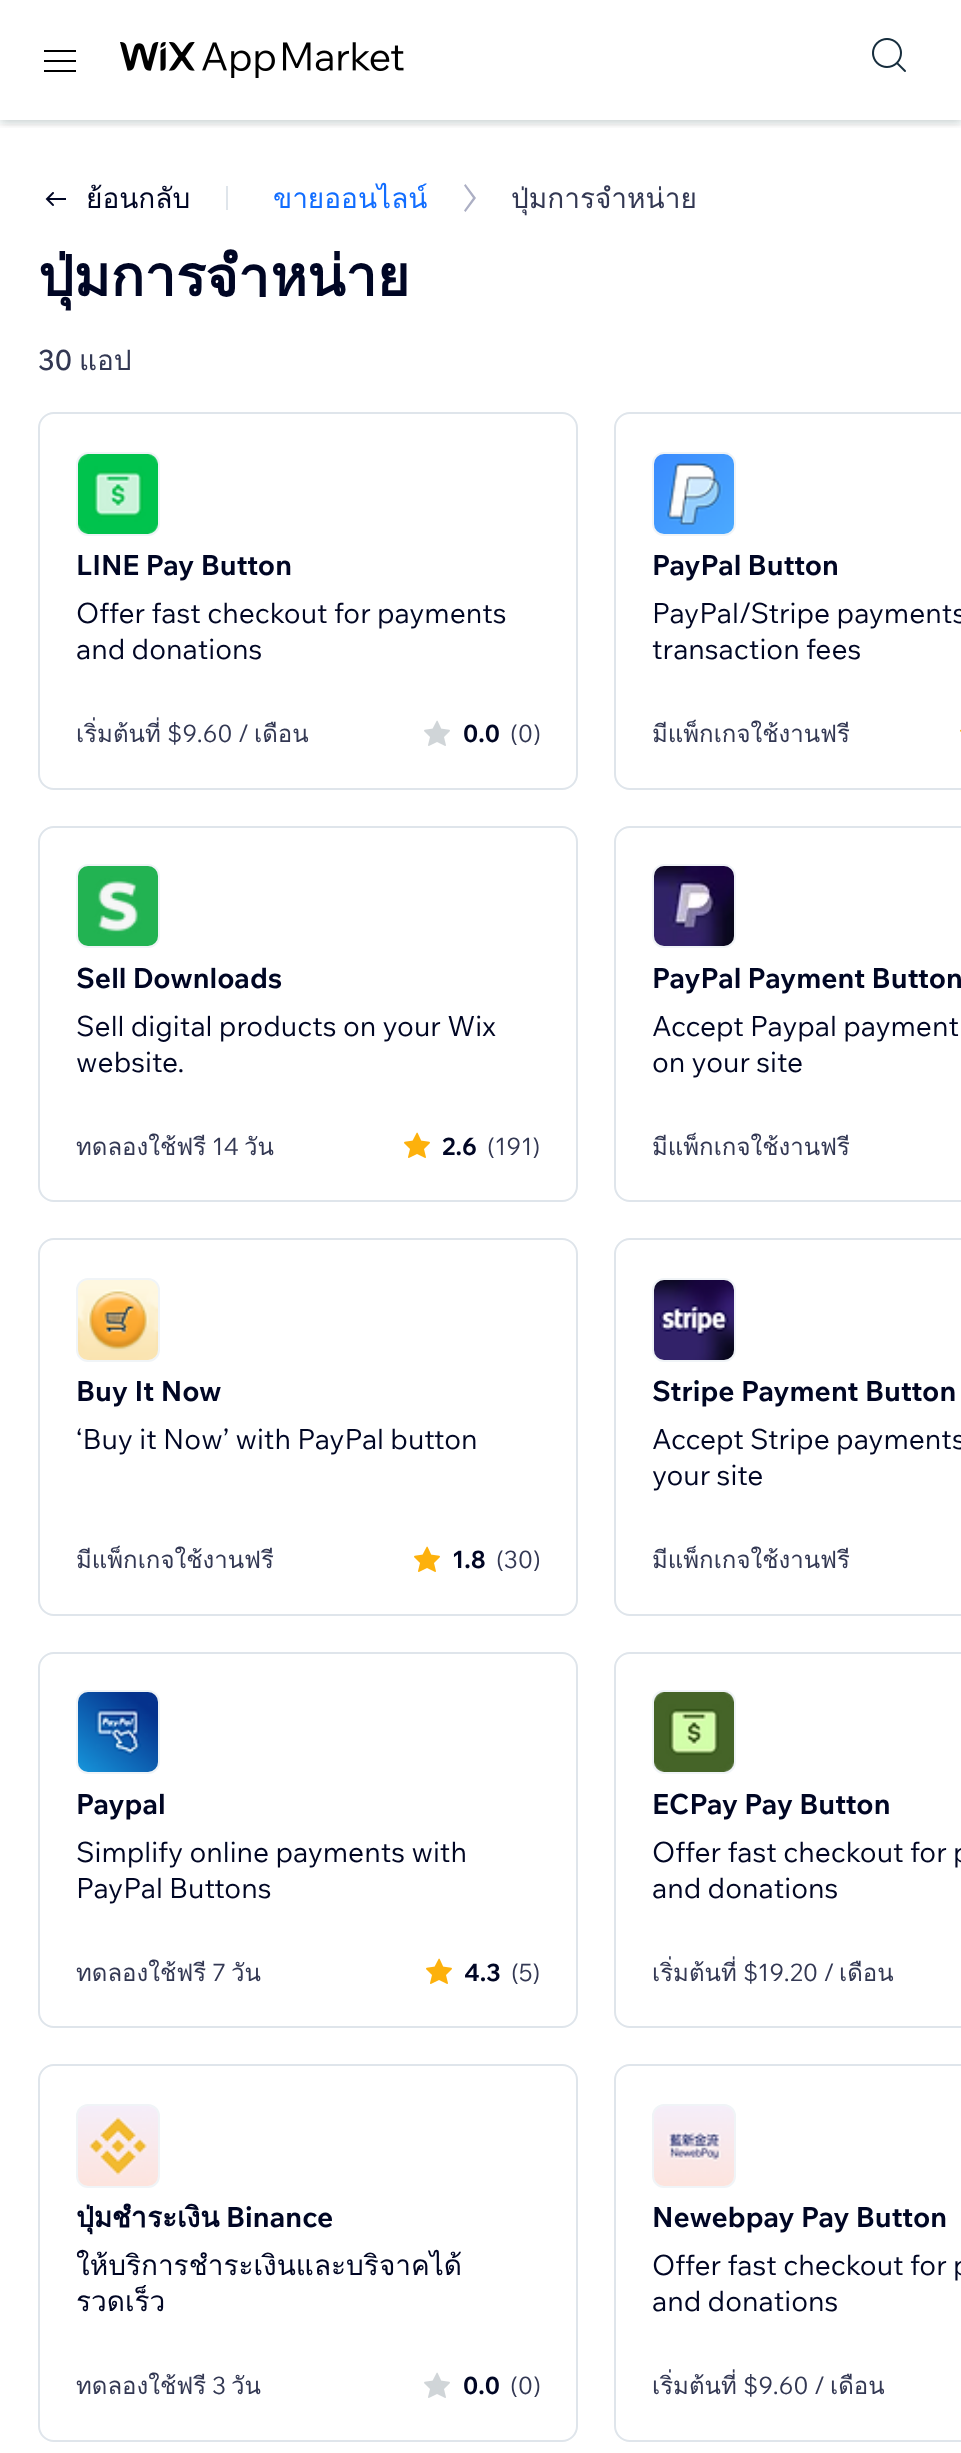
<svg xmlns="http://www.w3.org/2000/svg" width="961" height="2453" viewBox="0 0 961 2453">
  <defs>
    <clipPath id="clip1"><rect x="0" y="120" width="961" height="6"/></clipPath>
    <filter id="blur1" x="-50%" y="-200%" width="200%" height="500%"><feGaussianBlur stdDeviation="6"/></filter>
    <clipPath id="clip2"><rect x="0" y="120" width="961" height="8"/></clipPath>
    <filter id="blur2" x="-50%" y="-200%" width="200%" height="500%"><feGaussianBlur stdDeviation="4"/></filter>
    <clipPath id="clip3"><rect x="512" y="180" width="184" height="36"/></clipPath>
  </defs>
  <rect width="100%" height="100%" fill="#ffffff"/>
  <g clip-path="url(#clip1)">
    <rect x="0" y="0" width="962" height="120" fill="#162d3d" fill-opacity="0.12" filter="url(#blur1)"/>
  </g>
  <g clip-path="url(#clip2)">
    <rect x="0" y="4" width="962" height="120" fill="#162d3d" fill-opacity="0.12" filter="url(#blur2)"/>
  </g>
  <image x="44" y="50" width="32" height="22" href="img1.png"/>
  <image x="120" y="42" width="284" height="36" href="img2.png"/>
  <image x="872" y="38" width="34" height="34" href="img3.png"/>
  <image x="45" y="192" width="21" height="14" href="img4.png"/>
  <text x="86" y="208" font-family="Loma" font-size="28" fill="#000624">ย้อนกลับ</text>
  <rect x="226" y="186" width="2" height="24" fill="#dfe5eb"/>
  <text x="273" y="208" font-family="Loma" font-size="28" fill="#116dff">ขายออนไลน์</text>
  <path d="M464 185.5L473 198L464 210.5L465.5 212L476 198L465.5 184Z" fill="#acafc4"/>
  <g clip-path="url(#clip3)">
    <text x="511" y="208" font-family="Loma" font-size="28" fill="#333853">ปุ่มการจำหน่าย</text>
  </g>
  <text x="38" y="296" font-family="Loma" font-size="56" font-weight="bold" fill="#000624">ปุ่มการจำหน่าย</text>
  <text x="38" y="370" font-family="Wix Madefor Text" font-size="28" font-weight="500" fill="#333853">30</text>
  <text x="79" y="370" font-family="Loma" font-size="28" fill="#333853">แอป</text>
  <rect x="39" y="413" width="538" height="376" rx="15" fill="none" stroke="#dfe5eb" stroke-width="2"/>
  <rect x="77" y="453" width="82" height="82" rx="11" fill="#f6f7f7" stroke="#f0f4f7" stroke-width="2"/>
  <image x="78" y="454" width="80" height="80" href="img5.png"/>
  <text x="76" y="575" font-family="Wix Madefor Text" font-size="28" font-weight="bold" fill="#000624">LINE Pay Button</text>
  <text x="76" y="623" font-family="Wix Madefor Text" font-size="28" fill="#000624">Offer fast checkout for payments</text>
  <text x="76" y="659" font-family="Wix Madefor Text" font-size="28" fill="#000624">and donations</text>
  <text x="76" y="742" font-family="Loma" font-size="24" fill="#333853">เริ่มต้นที่</text>
  <text x="167" y="742" font-family="Wix Madefor Text" font-size="24" fill="#333853">$9.60 /</text>
  <text x="254" y="742" font-family="Loma" font-size="24" fill="#333853">เดือน</text>
  <image x="424" y="720" width="26" height="26" href="img6.png"/>
  <text x="463" y="742" font-family="Wix Madefor Text" font-size="24" font-weight="bold" fill="#000624">0.0</text>
  <text x="510" y="742" font-family="Wix Madefor Text" font-size="24" fill="#333853">(0)</text>
  <rect x="615" y="413" width="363" height="376" rx="15" fill="none" stroke="#dfe5eb" stroke-width="2"/>
  <rect x="653" y="453" width="82" height="82" rx="11" fill="#f6f7f7" stroke="#f0f4f7" stroke-width="2"/>
  <image x="654" y="454" width="80" height="80" href="img7.png"/>
  <text x="652" y="575" font-family="Wix Madefor Text" font-size="28" font-weight="bold" fill="#000624">PayPal Button</text>
  <text x="652" y="623" font-family="Wix Madefor Text" font-size="28" fill="#000624">PayPal/Stripe payments</text>
  <text x="652" y="659" font-family="Wix Madefor Text" font-size="28" fill="#000624">transaction fees</text>
  <text x="652" y="742" font-family="Loma" font-size="24" fill="#333853">มีแพ็กเกจใช้งานฟรี</text>
  <image x="960" y="729" width="1" height="3" href="img8.png"/>
  <rect x="39" y="827" width="538" height="374" rx="15" fill="none" stroke="#dfe5eb" stroke-width="2"/>
  <rect x="77" y="865" width="82" height="82" rx="11" fill="#f6f7f7" stroke="#f0f4f7" stroke-width="2"/>
  <image x="78" y="866" width="80" height="80" href="img9.png"/>
  <text x="76" y="988" font-family="Wix Madefor Text" font-size="28" font-weight="bold" fill="#000624">Sell Downloads</text>
  <text x="76" y="1036" font-family="Wix Madefor Text" font-size="28" fill="#000624">Sell digital products on your Wix</text>
  <text x="76" y="1072" font-family="Wix Madefor Text" font-size="28" fill="#000624">website.</text>
  <text x="76" y="1155" font-family="Loma" font-size="24" fill="#333853">ทดลองใช้ฟรี</text>
  <text x="212" y="1155" font-family="Wix Madefor Text" font-size="24" fill="#333853">14</text>
  <text x="244" y="1155" font-family="Loma" font-size="24" fill="#333853">วัน</text>
  <image x="404" y="1132" width="26" height="26" href="img10.png"/>
  <text x="442" y="1155" font-family="Wix Madefor Text" font-size="24" font-weight="bold" fill="#000624">2.6</text>
  <text x="487" y="1155" font-family="Wix Madefor Text" font-size="24" fill="#333853">(191)</text>
  <rect x="615" y="827" width="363" height="374" rx="15" fill="none" stroke="#dfe5eb" stroke-width="2"/>
  <rect x="653" y="865" width="82" height="82" rx="11" fill="#f6f7f7" stroke="#f0f4f7" stroke-width="2"/>
  <image x="654" y="866" width="80" height="80" href="img11.png"/>
  <text x="652" y="988" font-family="Wix Madefor Text" font-size="28" font-weight="bold" fill="#000624">PayPal Payment Button</text>
  <text x="652" y="1036" font-family="Wix Madefor Text" font-size="28" fill="#000624">Accept Paypal payment</text>
  <text x="652" y="1072" font-family="Wix Madefor Text" font-size="28" fill="#000624">on your site</text>
  <text x="652" y="1155" font-family="Loma" font-size="24" fill="#333853">มีแพ็กเกจใช้งานฟรี</text>
  <rect x="39" y="1239" width="538" height="376" rx="15" fill="none" stroke="#dfe5eb" stroke-width="2"/>
  <rect x="77" y="1279" width="82" height="82" rx="11" fill="#f6f7f7" stroke="#f0f4f7" stroke-width="2"/>
  <image x="78" y="1280" width="80" height="80" href="img12.png"/>
  <text x="76" y="1401" font-family="Wix Madefor Text" font-size="28" font-weight="bold" fill="#000624">Buy It Now</text>
  <text x="76" y="1449" font-family="Wix Madefor Text" font-size="28" fill="#000624">‘Buy it Now’ with PayPal button</text>
  <text x="76" y="1568" font-family="Loma" font-size="24" fill="#333853">มีแพ็กเกจใช้งานฟรี</text>
  <image x="414" y="1546" width="26" height="26" href="img10.png"/>
  <text x="452" y="1568" font-family="Wix Madefor Text" font-size="24" font-weight="bold" fill="#000624">1.8</text>
  <text x="496" y="1568" font-family="Wix Madefor Text" font-size="24" fill="#333853">(30)</text>
  <rect x="615" y="1239" width="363" height="376" rx="15" fill="none" stroke="#dfe5eb" stroke-width="2"/>
  <rect x="653" y="1279" width="82" height="82" rx="11" fill="#f6f7f7" stroke="#f0f4f7" stroke-width="2"/>
  <image x="654" y="1280" width="80" height="80" href="img13.png"/>
  <text x="652" y="1401" font-family="Wix Madefor Text" font-size="28" font-weight="bold" fill="#000624">Stripe Payment Button</text>
  <text x="652" y="1449" font-family="Wix Madefor Text" font-size="28" fill="#000624">Accept Stripe payments</text>
  <text x="652" y="1485" font-family="Wix Madefor Text" font-size="28" fill="#000624">your site</text>
  <text x="652" y="1568" font-family="Loma" font-size="24" fill="#333853">มีแพ็กเกจใช้งานฟรี</text>
  <rect x="39" y="1653" width="538" height="374" rx="15" fill="none" stroke="#dfe5eb" stroke-width="2"/>
  <rect x="77" y="1691" width="82" height="82" rx="11" fill="#f6f7f7" stroke="#f0f4f7" stroke-width="2"/>
  <image x="78" y="1692" width="80" height="80" href="img14.png"/>
  <text x="76" y="1814" font-family="Wix Madefor Text" font-size="28" font-weight="bold" fill="#000624">Paypal</text>
  <text x="76" y="1862" font-family="Wix Madefor Text" font-size="28" fill="#000624">Simplify online payments with</text>
  <text x="76" y="1898" font-family="Wix Madefor Text" font-size="28" fill="#000624">PayPal Buttons</text>
  <text x="76" y="1981" font-family="Loma" font-size="24" fill="#333853">ทดลองใช้ฟรี</text>
  <text x="212" y="1981" font-family="Wix Madefor Text" font-size="24" fill="#333853">7</text>
  <text x="231" y="1981" font-family="Loma" font-size="24" fill="#333853">วัน</text>
  <image x="426" y="1958" width="26" height="26" href="img10.png"/>
  <text x="464" y="1981" font-family="Wix Madefor Text" font-size="24" font-weight="bold" fill="#000624">4.3</text>
  <text x="511" y="1981" font-family="Wix Madefor Text" font-size="24" fill="#333853">(5)</text>
  <rect x="615" y="1653" width="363" height="374" rx="15" fill="none" stroke="#dfe5eb" stroke-width="2"/>
  <rect x="653" y="1691" width="82" height="82" rx="11" fill="#f6f7f7" stroke="#f0f4f7" stroke-width="2"/>
  <image x="654" y="1692" width="80" height="80" href="img15.png"/>
  <text x="652" y="1814" font-family="Wix Madefor Text" font-size="28" font-weight="bold" fill="#000624">ECPay Pay Button</text>
  <text x="652" y="1862" font-family="Wix Madefor Text" font-size="28" fill="#000624">Offer fast checkout for p</text>
  <text x="652" y="1898" font-family="Wix Madefor Text" font-size="28" fill="#000624">and donations</text>
  <text x="652" y="1981" font-family="Loma" font-size="24" fill="#333853">เริ่มต้นที่</text>
  <text x="743" y="1981" font-family="Wix Madefor Text" font-size="24" fill="#333853">$19.20 /</text>
  <text x="839" y="1981" font-family="Loma" font-size="24" fill="#333853">เดือน</text>
  <rect x="39" y="2065" width="538" height="376" rx="15" fill="none" stroke="#dfe5eb" stroke-width="2"/>
  <rect x="77" y="2105" width="82" height="82" rx="11" fill="#f6f7f7" stroke="#f0f4f7" stroke-width="2"/>
  <image x="78" y="2106" width="80" height="80" href="img16.png"/>
  <text x="76" y="2227" font-family="Loma" font-size="28" font-weight="bold" fill="#000624">ปุ่มชำระเงิน</text>
  <text x="226" y="2227" font-family="Wix Madefor Text" font-size="28" font-weight="bold" fill="#000624">Binance</text>
  <text x="76" y="2275" font-family="Loma" font-size="28" fill="#000624">ให้บริการชำระเงินและบริจาคได้</text>
  <text x="76" y="2311" font-family="Loma" font-size="28" fill="#000624">รวดเร็ว</text>
  <text x="76" y="2394" font-family="Loma" font-size="24" fill="#333853">ทดลองใช้ฟรี</text>
  <text x="212" y="2394" font-family="Wix Madefor Text" font-size="24" fill="#333853">3</text>
  <text x="231" y="2394" font-family="Loma" font-size="24" fill="#333853">วัน</text>
  <image x="424" y="2372" width="26" height="26" href="img6.png"/>
  <text x="463" y="2394" font-family="Wix Madefor Text" font-size="24" font-weight="bold" fill="#000624">0.0</text>
  <text x="510" y="2394" font-family="Wix Madefor Text" font-size="24" fill="#333853">(0)</text>
  <rect x="615" y="2065" width="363" height="376" rx="15" fill="none" stroke="#dfe5eb" stroke-width="2"/>
  <rect x="653" y="2105" width="82" height="82" rx="11" fill="#f6f7f7" stroke="#f0f4f7" stroke-width="2"/>
  <image x="654" y="2106" width="80" height="80" href="img17.png"/>
  <text x="652" y="2227" font-family="Wix Madefor Text" font-size="28" font-weight="bold" fill="#000624">Newebpay Pay Button</text>
  <text x="652" y="2275" font-family="Wix Madefor Text" font-size="28" fill="#000624">Offer fast checkout for p</text>
  <text x="652" y="2311" font-family="Wix Madefor Text" font-size="28" fill="#000624">and donations</text>
  <text x="652" y="2394" font-family="Loma" font-size="24" fill="#333853">เริ่มต้นที่</text>
  <text x="743" y="2394" font-family="Wix Madefor Text" font-size="24" fill="#333853">$9.60 /</text>
  <text x="830" y="2394" font-family="Loma" font-size="24" fill="#333853">เดือน</text>
</svg>
